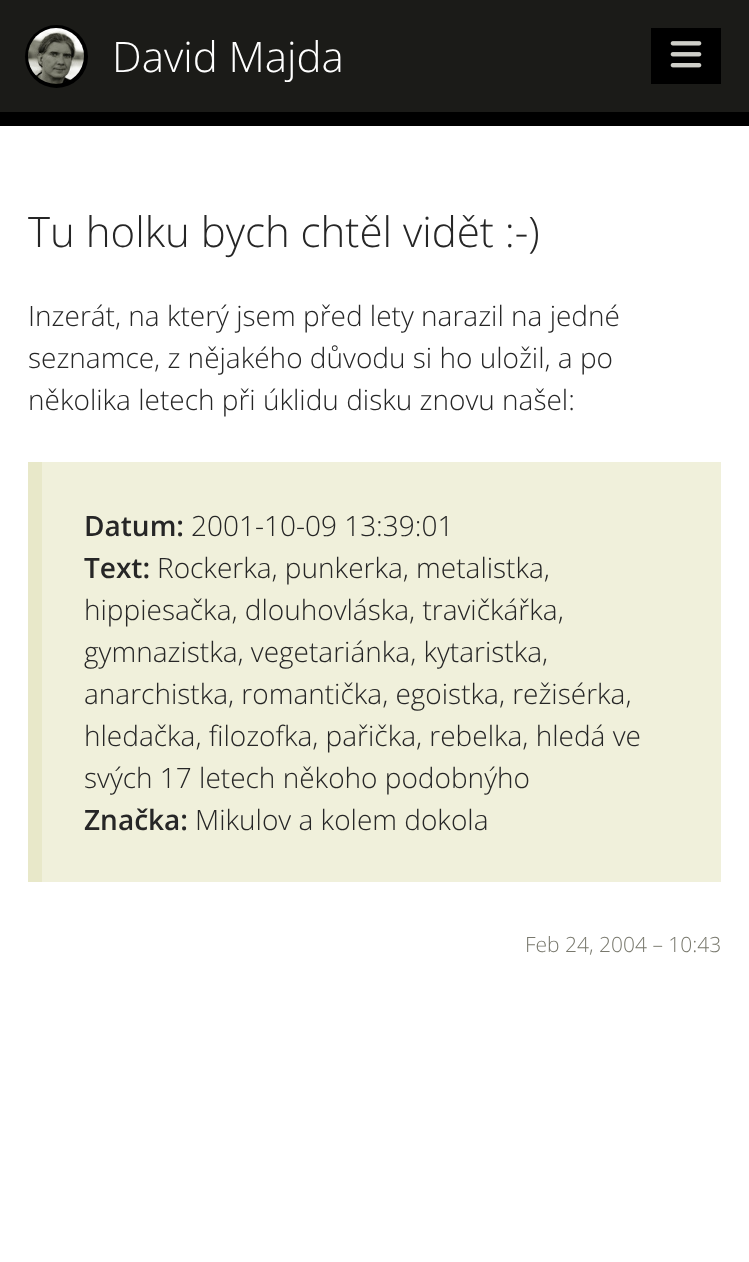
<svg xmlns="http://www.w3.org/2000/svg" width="749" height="1262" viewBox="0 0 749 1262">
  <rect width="100%" height="100%" fill="#ffffff"/>
  <rect x="0" y="0" width="749" height="112" fill="#1b1b18"/>
  <rect x="0" y="112" width="749" height="14" fill="#000000"/>
  <circle cx="56.5" cy="56.5" r="31.5" fill="#000000"/>
  <image x="28" y="28" width="56" height="56" href="img1.png"/>
  <text x="112" y="72" font-family="Open Sans" font-size="42" font-weight="300" fill="#ffffff">David Majda</text>
  <rect x="651" y="28" width="70" height="56" fill="#000000"/>
  <image x="670" y="41" width="32" height="27" href="img2.png"/>
  <text x="28" y="247" font-family="Open Sans" font-size="42" font-weight="300" fill="#262626">Tu holku bych chtěl vidět :-)</text>
  <text x="28" y="326" font-family="Open Sans" font-size="28" font-weight="300" fill="#262626">Inzerát, na který jsem před lety narazil na jedné</text>
  <text x="28" y="368" font-family="Open Sans" font-size="28" font-weight="300" fill="#262626">seznamce, z nějakého důvodu si ho uložil, a po</text>
  <text x="28" y="410" font-family="Open Sans" font-size="28" font-weight="300" fill="#262626">několika letech při úklidu disku znovu našel:</text>
  <rect x="42" y="462" width="679" height="420" fill="#f0f0db"/>
  <rect x="28" y="462" width="14" height="420" fill="#e8e8c9"/>
  <text x="84" y="536" font-family="Open Sans" font-size="28" font-weight="600" fill="#262626">Datum:</text>
  <text x="191" y="536" font-family="Open Sans" font-size="28" font-weight="300" fill="#262626">2001-10-09 13:39:01</text>
  <text x="84" y="578" font-family="Open Sans" font-size="28" font-weight="600" fill="#262626">Text:</text>
  <text x="157" y="578" font-family="Open Sans" font-size="28" font-weight="300" fill="#262626">Rockerka, punkerka, metalistka,</text>
  <text x="84" y="620" font-family="Open Sans" font-size="28" font-weight="300" fill="#262626">hippiesačka, dlouhovláska, travičkářka,</text>
  <text x="84" y="662" font-family="Open Sans" font-size="28" font-weight="300" fill="#262626">gymnazistka, vegetariánka, kytaristka,</text>
  <text x="84" y="704" font-family="Open Sans" font-size="28" font-weight="300" fill="#262626">anarchistka, romantička, egoistka, režisérka,</text>
  <text x="84" y="746" font-family="Open Sans" font-size="28" font-weight="300" fill="#262626">hledačka, filozofka, pařička, rebelka, hledá ve</text>
  <text x="84" y="788" font-family="Open Sans" font-size="28" font-weight="300" fill="#262626">svých 17 letech někoho podobnýho</text>
  <text x="84" y="830" font-family="Open Sans" font-size="28" font-weight="600" fill="#262626">Značka:</text>
  <text x="195" y="830" font-family="Open Sans" font-size="28" font-weight="300" fill="#262626">Mikulov a kolem dokola</text>
  <text x="525" y="952" font-family="Open Sans" font-size="21" font-weight="300" fill="#78786d">Feb 24, 2004 – 10:43</text>
</svg>
